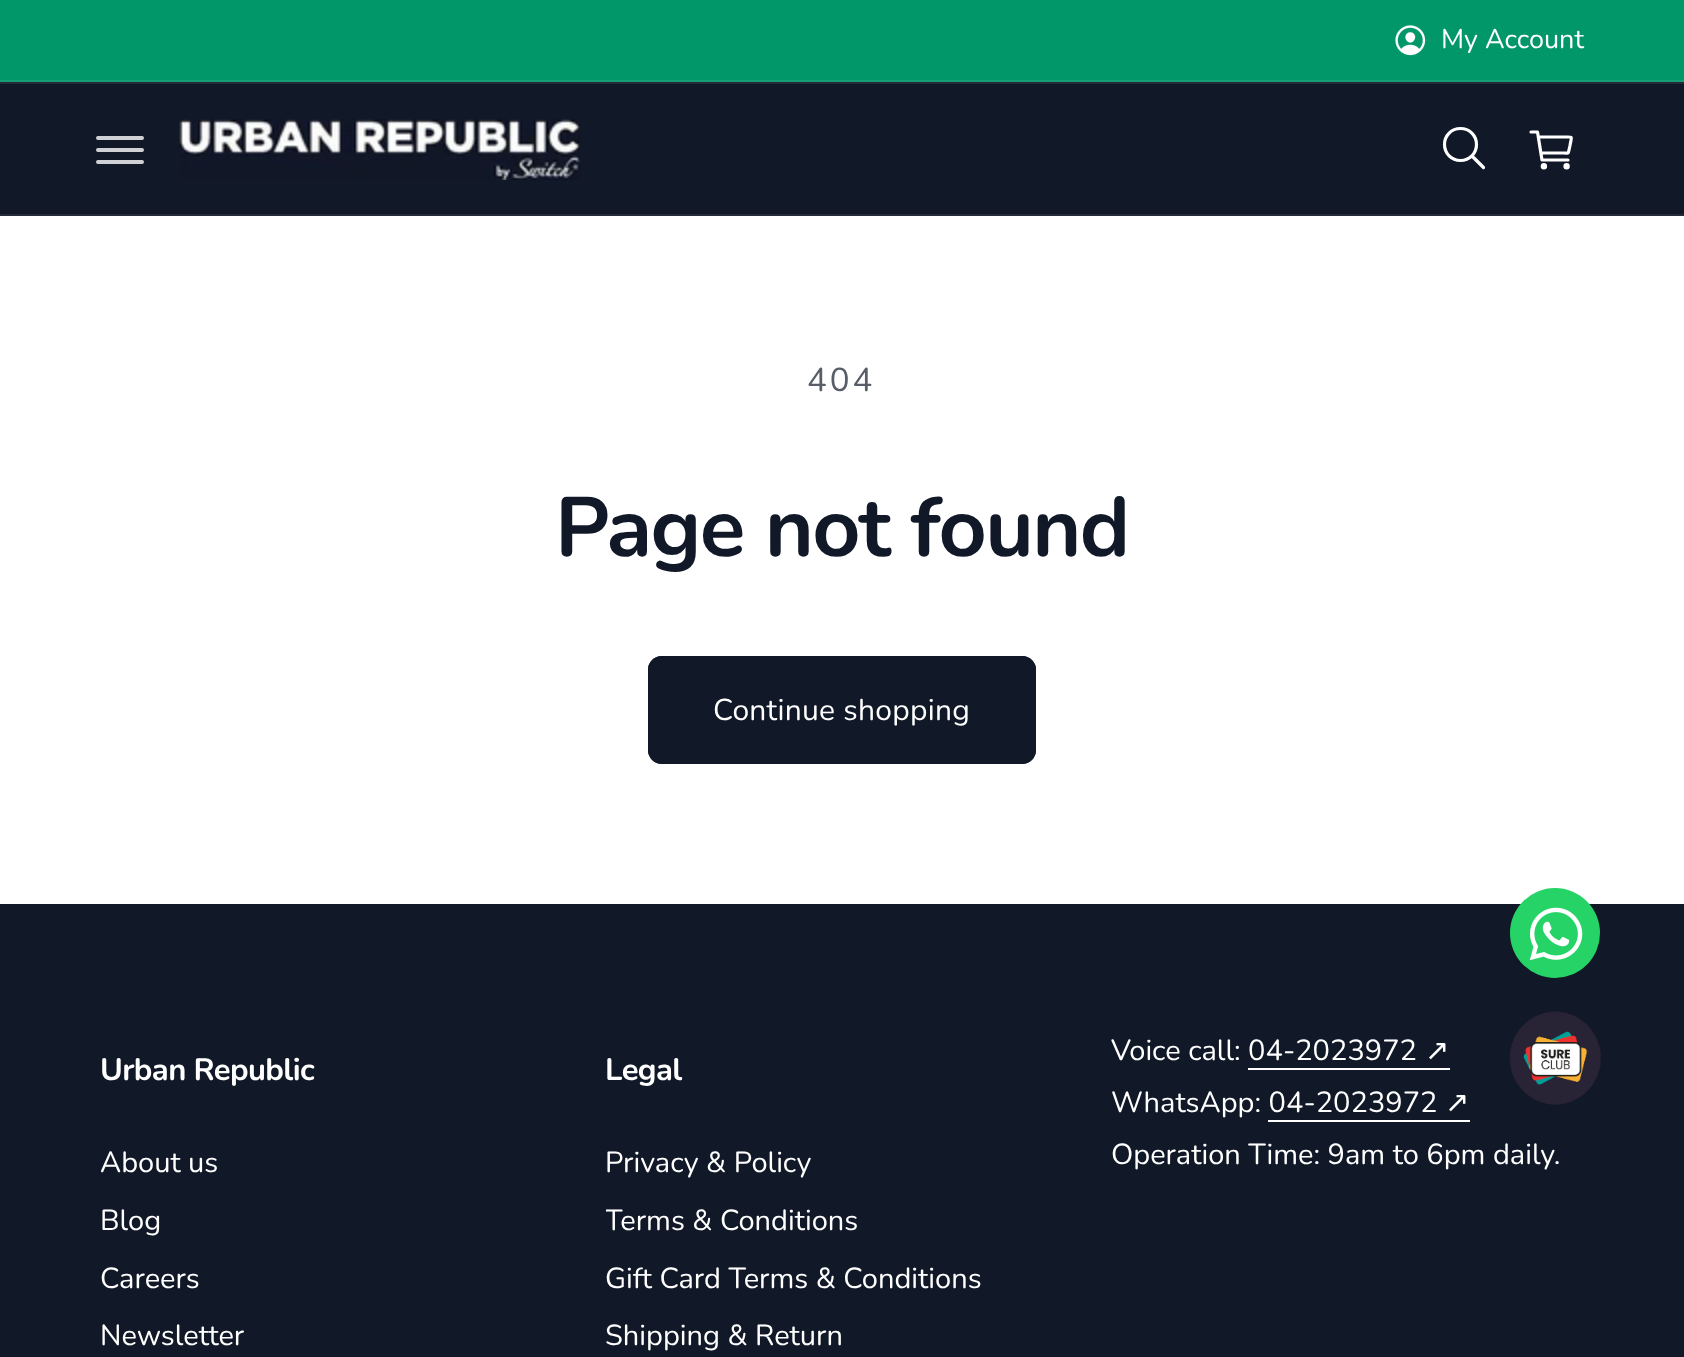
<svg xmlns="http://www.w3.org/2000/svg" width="1684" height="1357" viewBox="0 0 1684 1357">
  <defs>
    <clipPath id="clip1"><rect x="606" y="1114" width="472" height="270"/></clipPath>
  </defs>
  <rect width="100%" height="100%" fill="#ffffff"/>
  <rect x="0" y="0" width="1684" height="80" fill="#029769"/>
  <rect x="0" y="80" width="1684" height="2" fill="#169f75"/>
  <image x="1395" y="25" width="31" height="31" href="img1.png"/>
  <text x="1441" y="48" font-family="Nunito" font-size="27" fill="#ffffff">My Account</text>
  <rect x="0" y="84" width="1684" height="130" fill="#111827"/>
  <rect x="0" y="82" width="1684" height="2" fill="#242a38"/>
  <rect x="0" y="214" width="1684" height="2" fill="#242a38"/>
  <path d="M98 138H142M98 150H142M98 162H142" fill="none" stroke="#cfd1d4" stroke-width="4" stroke-linecap="round"/>
  <image x="179" y="119" width="401" height="61" href="img2.png"/>
  <path d="M1460.5 128.5C1451.5 128.5 1444.5 135.5 1444.5 144.5C1444.5 153.5 1451.5 160.5 1460.5 160.5C1469.5 160.5 1476.5 153.5 1476.5 144.5C1476.5 135.5 1469.5 128.5 1460.5 128.5Z" fill="none" stroke="#ffffff" stroke-width="3.2"/>
  <path d="M1472.5 156.5L1483.5 167.5" fill="none" stroke="#ffffff" stroke-width="3.2" stroke-linecap="round"/>
  <circle cx="1543.9" cy="166.2" r="1.6" fill="none" stroke="#ffffff" stroke-width="3.2"/>
  <circle cx="1566.6" cy="166.2" r="1.6" fill="none" stroke="#ffffff" stroke-width="3.2"/>
  <path d="M1531 132H1537.5L1542 160H1568M1542 153H1563.5C1568.5 153 1568 154.5 1569 150L1570 145.5C1571.5 136 1573.5 137 1565.5 137H1539" fill="none" stroke="#ffffff" stroke-width="3.2" stroke-linecap="round" stroke-linejoin="round"/>
  <text x="807" y="391" font-family="Nunito" font-size="33" letter-spacing="3" fill="#585d68">404</text>
  <text x="555" y="556" font-family="Nunito" font-size="84" font-weight="bold" letter-spacing="-1.6" fill="#111827">Page not found</text>
  <rect x="648" y="656" width="388" height="108" rx="14" fill="#111827"/>
  <rect x="649" y="657" width="386" height="106" rx="13" fill="none" stroke="#111827" stroke-width="2"/>
  <text x="713" y="720" font-family="Nunito" font-size="30" letter-spacing="0.25" fill="#ffffff">Continue shopping</text>
  <rect x="0" y="904" width="1684" height="453" fill="#111827"/>
  <circle cx="1555" cy="933" r="45" fill="#25d366"/>
  <image x="1529" y="907" width="54" height="54" href="img3.png"/>
  <image x="1509" y="1011" width="92" height="94" href="img4.png"/>
  <text x="100" y="1080" font-family="Nunito" font-size="31" font-weight="bold" letter-spacing="-0.6" fill="#ffffff">Urban Republic</text>
  <text x="100" y="1172" font-family="Nunito" font-size="29" fill="#ffffff">About us</text>
  <text x="100" y="1230" font-family="Nunito" font-size="29" fill="#ffffff">Blog</text>
  <text x="100" y="1288" font-family="Nunito" font-size="29" fill="#ffffff">Careers</text>
  <text x="100" y="1345" font-family="Nunito" font-size="29" fill="#ffffff">Newsletter</text>
  <text x="605" y="1080" font-family="Nunito" font-size="31" font-weight="bold" letter-spacing="-0.6" fill="#ffffff">Legal</text>
  <text x="605" y="1172" font-family="Nunito" font-size="29" fill="#ffffff">Privacy &amp; Policy</text>
  <g clip-path="url(#clip1)">
    <text x="605" y="1230" font-family="Nunito" font-size="29" fill="#ffffff">Terms &amp; Conditions</text>
  </g>
  <text x="605" y="1288" font-family="Nunito" font-size="29" fill="#ffffff">Gift Card Terms &amp; Conditions</text>
  <text x="605" y="1345" font-family="Nunito" font-size="29" fill="#ffffff">Shipping &amp; Return</text>
  <text x="1111" y="1060" font-family="Nunito" font-size="29" fill="#ffffff">Voice call: 04-2023972</text>
  <text x="1425" y="1060" font-family="DejaVu Sans" font-size="29" fill="#ffffff">↗</text>
  <rect x="1248" y="1068" width="202" height="2" fill="#ffffff"/>
  <text x="1111" y="1112" font-family="Nunito" font-size="29" fill="#ffffff">WhatsApp: 04-2023972</text>
  <text x="1445" y="1112" font-family="DejaVu Sans" font-size="29" fill="#ffffff">↗</text>
  <rect x="1268" y="1120" width="202" height="2" fill="#ffffff"/>
  <text x="1111" y="1164" font-family="Nunito" font-size="29" fill="#ffffff">Operation Time: 9am to 6pm daily.</text>
</svg>
